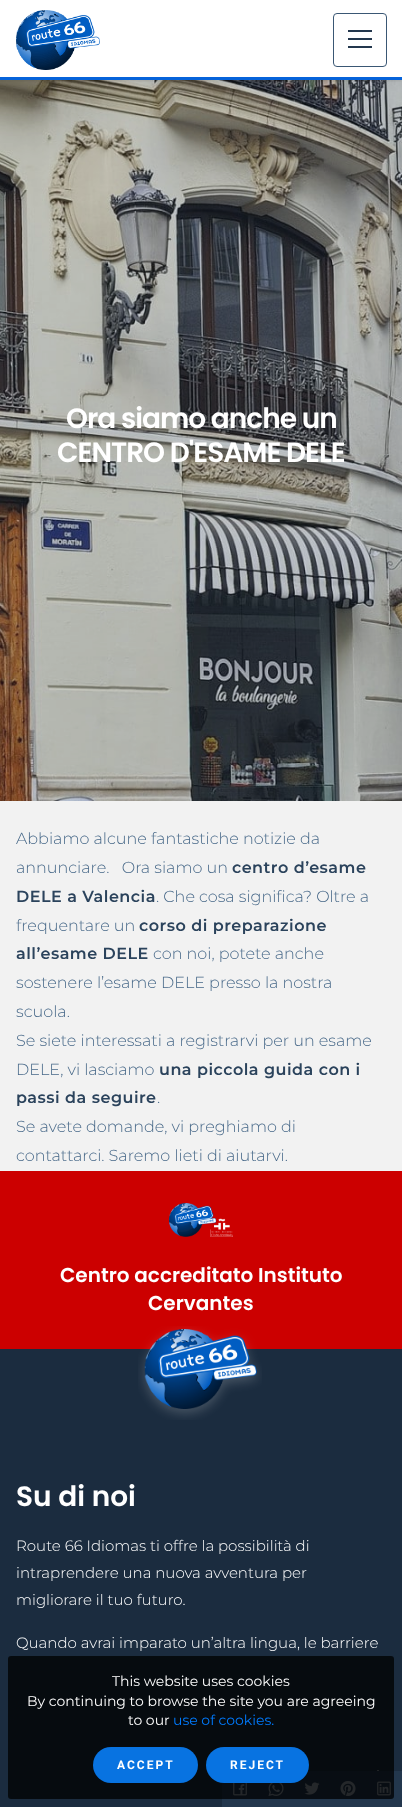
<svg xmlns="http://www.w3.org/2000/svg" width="402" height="1807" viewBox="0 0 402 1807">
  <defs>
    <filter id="blur1" x="-50%" y="-200%" width="200%" height="500%"><feGaussianBlur stdDeviation="10"/></filter>
    <filter id="blur2" x="-50%" y="-200%" width="200%" height="500%"><feGaussianBlur stdDeviation="1"/></filter>
  </defs>
  <rect width="100%" height="100%" fill="#f2f2f2"/>
  <image x="0" y="80" width="402" height="721" href="img3.png"/>
  <rect x="0" y="4" width="402" height="80" fill="#000000" fill-opacity="0.05" filter="url(#blur1)"/>
  <rect x="0" y="1" width="402" height="80" fill="#000000" fill-opacity="0.1" filter="url(#blur2)"/>
  <rect x="0" y="0" width="402" height="77" fill="#ffffff"/>
  <image x="16" y="10" width="84" height="60" href="img1.png"/>
  <rect x="333.5" y="13.5" width="53" height="53" rx="3.5" fill="none" stroke="#3a5774"/>
  <image x="348" y="30" width="24" height="18" href="img2.png"/>
  <rect x="0" y="77" width="402" height="3" fill="#0663da"/>
  <text x="66" y="428" font-family="Poppins" font-size="28" font-weight="600" letter-spacing="-1" fill="#ffffff">Ora siamo anche un</text>
  <text x="57" y="462" font-family="Poppins" font-size="28" font-weight="600" letter-spacing="-1" fill="#ffffff">CENTRO D'ESAME DELE</text>
  <text x="16" y="844" font-family="Montserrat" font-size="16" font-weight="300" fill="#486989">Abbiamo alcune fantastiche notizie da</text>
  <text x="16" y="873" font-family="Montserrat" font-size="16" font-weight="300" fill="#486989" xml:space="preserve">annunciare.   Ora siamo un</text>
  <text x="232" y="873" font-family="Montserrat" font-size="16" font-weight="600" letter-spacing="0.5" fill="#2b435c">centro d’esame</text>
  <text x="16" y="902" font-family="Montserrat" font-size="16" font-weight="600" letter-spacing="0.5" fill="#2b435c">DELE a Valencia</text>
  <text x="156" y="902" font-family="Montserrat" font-size="16" font-weight="300" fill="#486989">. Che cosa significa? Oltre a</text>
  <text x="16" y="931" font-family="Montserrat" font-size="16" font-weight="300" fill="#486989">frequentare un</text>
  <text x="139" y="931" font-family="Montserrat" font-size="16" font-weight="600" letter-spacing="0.5" fill="#2b435c">corso di preparazione</text>
  <text x="16" y="959" font-family="Montserrat" font-size="16" font-weight="600" letter-spacing="0.5" fill="#2b435c">all’esame DELE</text>
  <text x="153" y="959" font-family="Montserrat" font-size="16" font-weight="300" fill="#486989">con noi, potete anche</text>
  <text x="16" y="988" font-family="Montserrat" font-size="16" font-weight="300" fill="#486989">sostenere l’esame DELE presso la nostra</text>
  <text x="16" y="1017" font-family="Montserrat" font-size="16" font-weight="300" fill="#486989">scuola.</text>
  <text x="16" y="1046" font-family="Montserrat" font-size="16" font-weight="300" fill="#486989">Se siete interessati a registrarvi per un esame</text>
  <text x="16" y="1075" font-family="Montserrat" font-size="16" font-weight="300" fill="#486989">DELE, vi lasciamo</text>
  <text x="159" y="1075" font-family="Montserrat" font-size="16" font-weight="600" letter-spacing="0.5" fill="#2b435c">una piccola guida con i</text>
  <text x="16" y="1103" font-family="Montserrat" font-size="16" font-weight="600" letter-spacing="0.5" fill="#2b435c">passi da seguire</text>
  <text x="157" y="1103" font-family="Montserrat" font-size="16" font-weight="300" fill="#486989">.</text>
  <text x="16" y="1132" font-family="Montserrat" font-size="16" font-weight="300" fill="#486989">Se avete domande, vi preghiamo di</text>
  <text x="16" y="1161" font-family="Montserrat" font-size="16" font-weight="300" fill="#486989">contattarci. Saremo lieti di aiutarvi.</text>
  <rect x="0" y="1349" width="402" height="458" fill="#1b2c3f"/>
  <rect x="0" y="1171" width="402" height="178" fill="#cc0000"/>
  <image x="169" y="1203" width="64" height="34" href="img4.png"/>
  <text x="60" y="1282" font-family="Poppins" font-size="20" font-weight="600" fill="#ffffff">Centro accreditato Instituto</text>
  <text x="148" y="1310" font-family="Poppins" font-size="20" font-weight="600" fill="#ffffff">Cervantes</text>
  <image x="138" y="1326" width="124" height="94" href="img5.png"/>
  <text x="16" y="1506" font-family="Poppins" font-size="28" font-weight="600" fill="#ffffff">Su di noi</text>
  <text x="16" y="1551" font-family="Montserrat" font-size="15" font-weight="300" fill="#ffffff">Route 66 Idiomas ti offre la possibilità di</text>
  <text x="16" y="1578" font-family="Montserrat" font-size="15" font-weight="300" fill="#ffffff">intraprendere una nuova avventura per</text>
  <text x="16" y="1605" font-family="Montserrat" font-size="15" font-weight="300" fill="#ffffff">migliorare il tuo futuro.</text>
  <text x="16" y="1648" font-family="Montserrat" font-size="15" font-weight="300" fill="#ffffff">Quando avrai imparato un’altra lingua, le barriere</text>
  <image x="377" y="1770" width="2" height="1" href="img6.png"/>
  <rect x="222" y="1771" width="180" height="36" fill="#23374d"/>
  <image x="233" y="1783" width="14" height="13" href="img7.png"/>
  <image x="268" y="1783" width="16" height="13" href="img8.png"/>
  <image x="304" y="1782" width="16" height="13" href="img9.png"/>
  <image x="340" y="1781" width="16" height="15" href="img10.png"/>
  <image x="377" y="1781" width="14" height="15" href="img11.png"/>
  <rect x="8" y="1656" width="386" height="143" rx="3" fill="#000000" fill-opacity="0.75"/>
  <text x="112" y="1686" font-family="Montserrat" font-size="14" fill="#ffffff">This website uses cookies</text>
  <text x="27" y="1706" font-family="Montserrat" font-size="14" fill="#ffffff">By continuing to browse the site you are agreeing</text>
  <text x="128" y="1725" font-family="Montserrat" font-size="14" fill="#ffffff">to our</text>
  <text x="173" y="1725" font-family="Montserrat" font-size="14" fill="#007bff">use of cookies.</text>
  <rect x="93" y="1747" width="105" height="36" rx="18" fill="#0873e1"/>
  <text x="117" y="1769" font-family="Roboto" font-size="12" font-weight="bold" letter-spacing="2" fill="#ffffff">ACCEPT</text>
  <rect x="206" y="1747" width="103" height="36" rx="18" fill="#0873e1"/>
  <text x="230" y="1769" font-family="Roboto" font-size="12" font-weight="bold" letter-spacing="2" fill="#ffffff">REJECT</text>
</svg>
